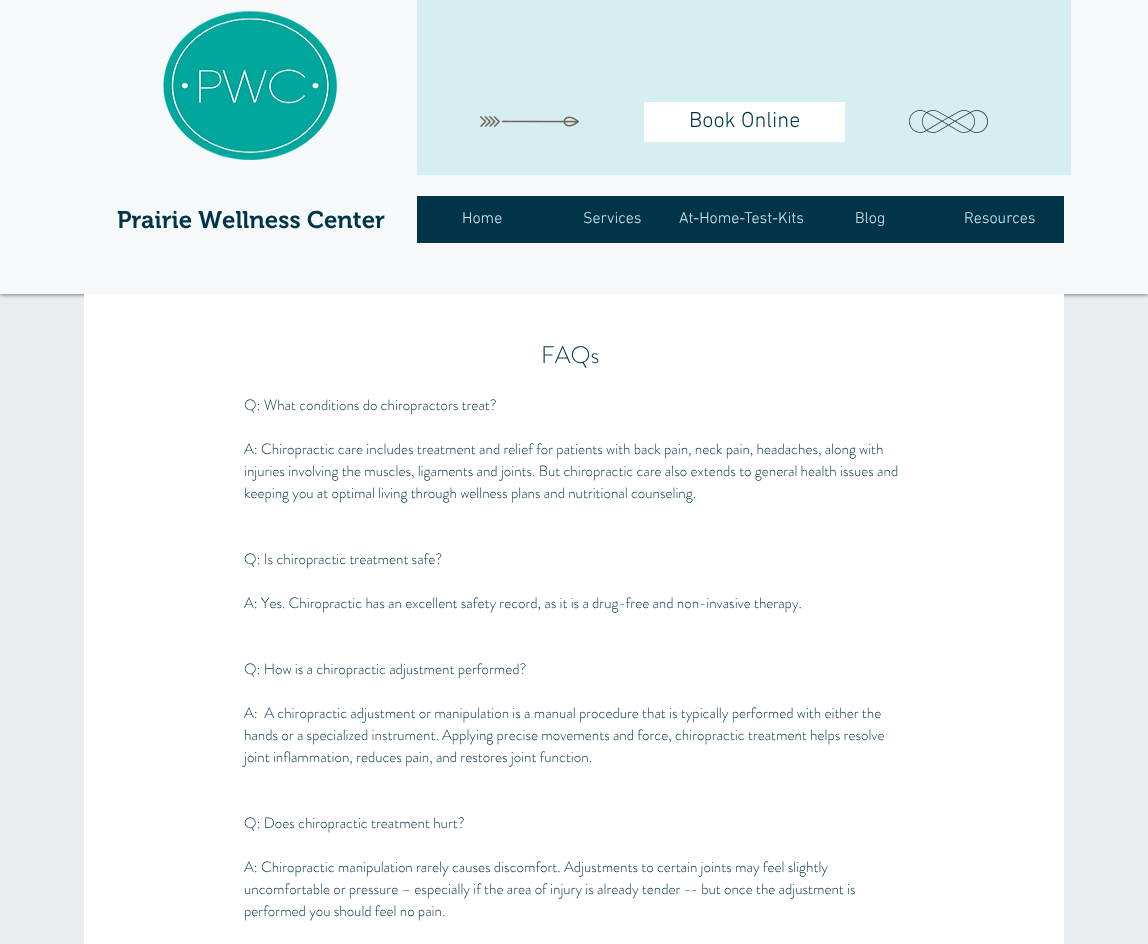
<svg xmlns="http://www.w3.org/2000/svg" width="1148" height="944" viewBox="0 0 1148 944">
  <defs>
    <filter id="blur1" x="-50%" y="-200%" width="200%" height="500%"><feGaussianBlur stdDeviation="2.5"/></filter>
  </defs>
  <rect width="100%" height="100%" fill="#eaeef0"/>
  <rect x="0" y="0" width="1148" height="294" fill="#000000" fill-opacity="0.7" filter="url(#blur1)"/>
  <rect x="0" y="0" width="1148" height="294" fill="#f6f9f9"/>
  <image x="163" y="10" width="174" height="150" href="img1.png"/>
  <rect x="417" y="0" width="654" height="175" fill="#d5eef1"/>
  <image x="480" y="116" width="99" height="11" href="img2.png"/>
  <rect x="644" y="102" width="201" height="40" fill="#ffffff"/>
  <text x="689" y="127" font-family="'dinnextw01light'" font-size="22" font-weight="300" fill="#003449">Book Online</text>
  <image x="909" y="110" width="79" height="23" href="img3.png"/>
  <text x="117" y="228" font-family="'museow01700'" font-size="24" font-weight="600" fill="#003449">Prairie Wellness Center</text>
  <rect x="417" y="196" width="647" height="47" fill="#003449"/>
  <text x="462" y="223" font-family="'dinnextw01light'" font-size="16" font-weight="300" fill="#d5eef1">Home</text>
  <text x="583" y="223" font-family="'dinnextw01light'" font-size="16" font-weight="300" fill="#d5eef1">Services</text>
  <text x="679" y="223" font-family="'dinnextw01light'" font-size="16" font-weight="300" fill="#d5eef1">At-Home-Test-Kits</text>
  <text x="855" y="223" font-family="'dinnextw01light'" font-size="16" font-weight="300" fill="#d5eef1">Blog</text>
  <text x="964" y="223" font-family="'dinnextw01light'" font-size="16" font-weight="300" fill="#d5eef1">Resources</text>
  <rect x="84" y="294" width="980" height="650" fill="#ffffff"/>
  <text x="541" y="363" font-family="'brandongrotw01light'" font-size="24" font-weight="300" fill="#003449">FAQs</text>
  <text x="244" y="410" font-family="'brandongrotw01light'" font-size="15" font-weight="300" fill="#003449">Q: What conditions do chiropractors treat?</text>
  <text x="244" y="454" font-family="'brandongrotw01light'" font-size="15" font-weight="300" fill="#003449">A: Chiropractic care includes treatment and relief for patients with back pain, neck pain, headaches, along with</text>
  <text x="244" y="476" font-family="'brandongrotw01light'" font-size="15" font-weight="300" fill="#003449">injuries involving the muscles, ligaments and joints. But chiropractic care also extends to general health issues and</text>
  <text x="244" y="498" font-family="'brandongrotw01light'" font-size="15" font-weight="300" fill="#003449">keeping you at optimal living through wellness plans and nutritional counseling.</text>
  <text x="244" y="564" font-family="'brandongrotw01light'" font-size="15" font-weight="300" fill="#003449">Q: Is chiropractic treatment safe?</text>
  <text x="244" y="608" font-family="'brandongrotw01light'" font-size="15" font-weight="300" fill="#003449">A: Yes. Chiropractic has an excellent safety record, as it is a drug-free and non-invasive therapy.</text>
  <text x="244" y="674" font-family="'brandongrotw01light'" font-size="15" font-weight="300" fill="#003449">Q: How is a chiropractic adjustment performed?</text>
  <text x="244" y="718" font-family="'brandongrotw01light'" font-size="15" font-weight="300" fill="#003449" xml:space="preserve">A:  A chiropractic adjustment or manipulation is a manual procedure that is typically performed with either the</text>
  <text x="244" y="740" font-family="'brandongrotw01light'" font-size="15" font-weight="300" fill="#003449">hands or a specialized instrument. Applying precise movements and force, chiropractic treatment helps resolve</text>
  <text x="244" y="762" font-family="'brandongrotw01light'" font-size="15" font-weight="300" fill="#003449">joint inflammation, reduces pain, and restores joint function.</text>
  <text x="244" y="828" font-family="'brandongrotw01light'" font-size="15" font-weight="300" fill="#003449">Q: Does chiropractic treatment hurt?</text>
  <text x="244" y="872" font-family="'brandongrotw01light'" font-size="15" font-weight="300" fill="#003449">A: Chiropractic manipulation rarely causes discomfort. Adjustments to certain joints may feel slightly</text>
  <text x="244" y="894" font-family="'brandongrotw01light'" font-size="15" font-weight="300" fill="#003449">uncomfortable or pressure – especially if the area of injury is already tender -- but once the adjustment is</text>
  <text x="244" y="916" font-family="'brandongrotw01light'" font-size="15" font-weight="300" fill="#003449">performed you should feel no pain.</text>
</svg>
